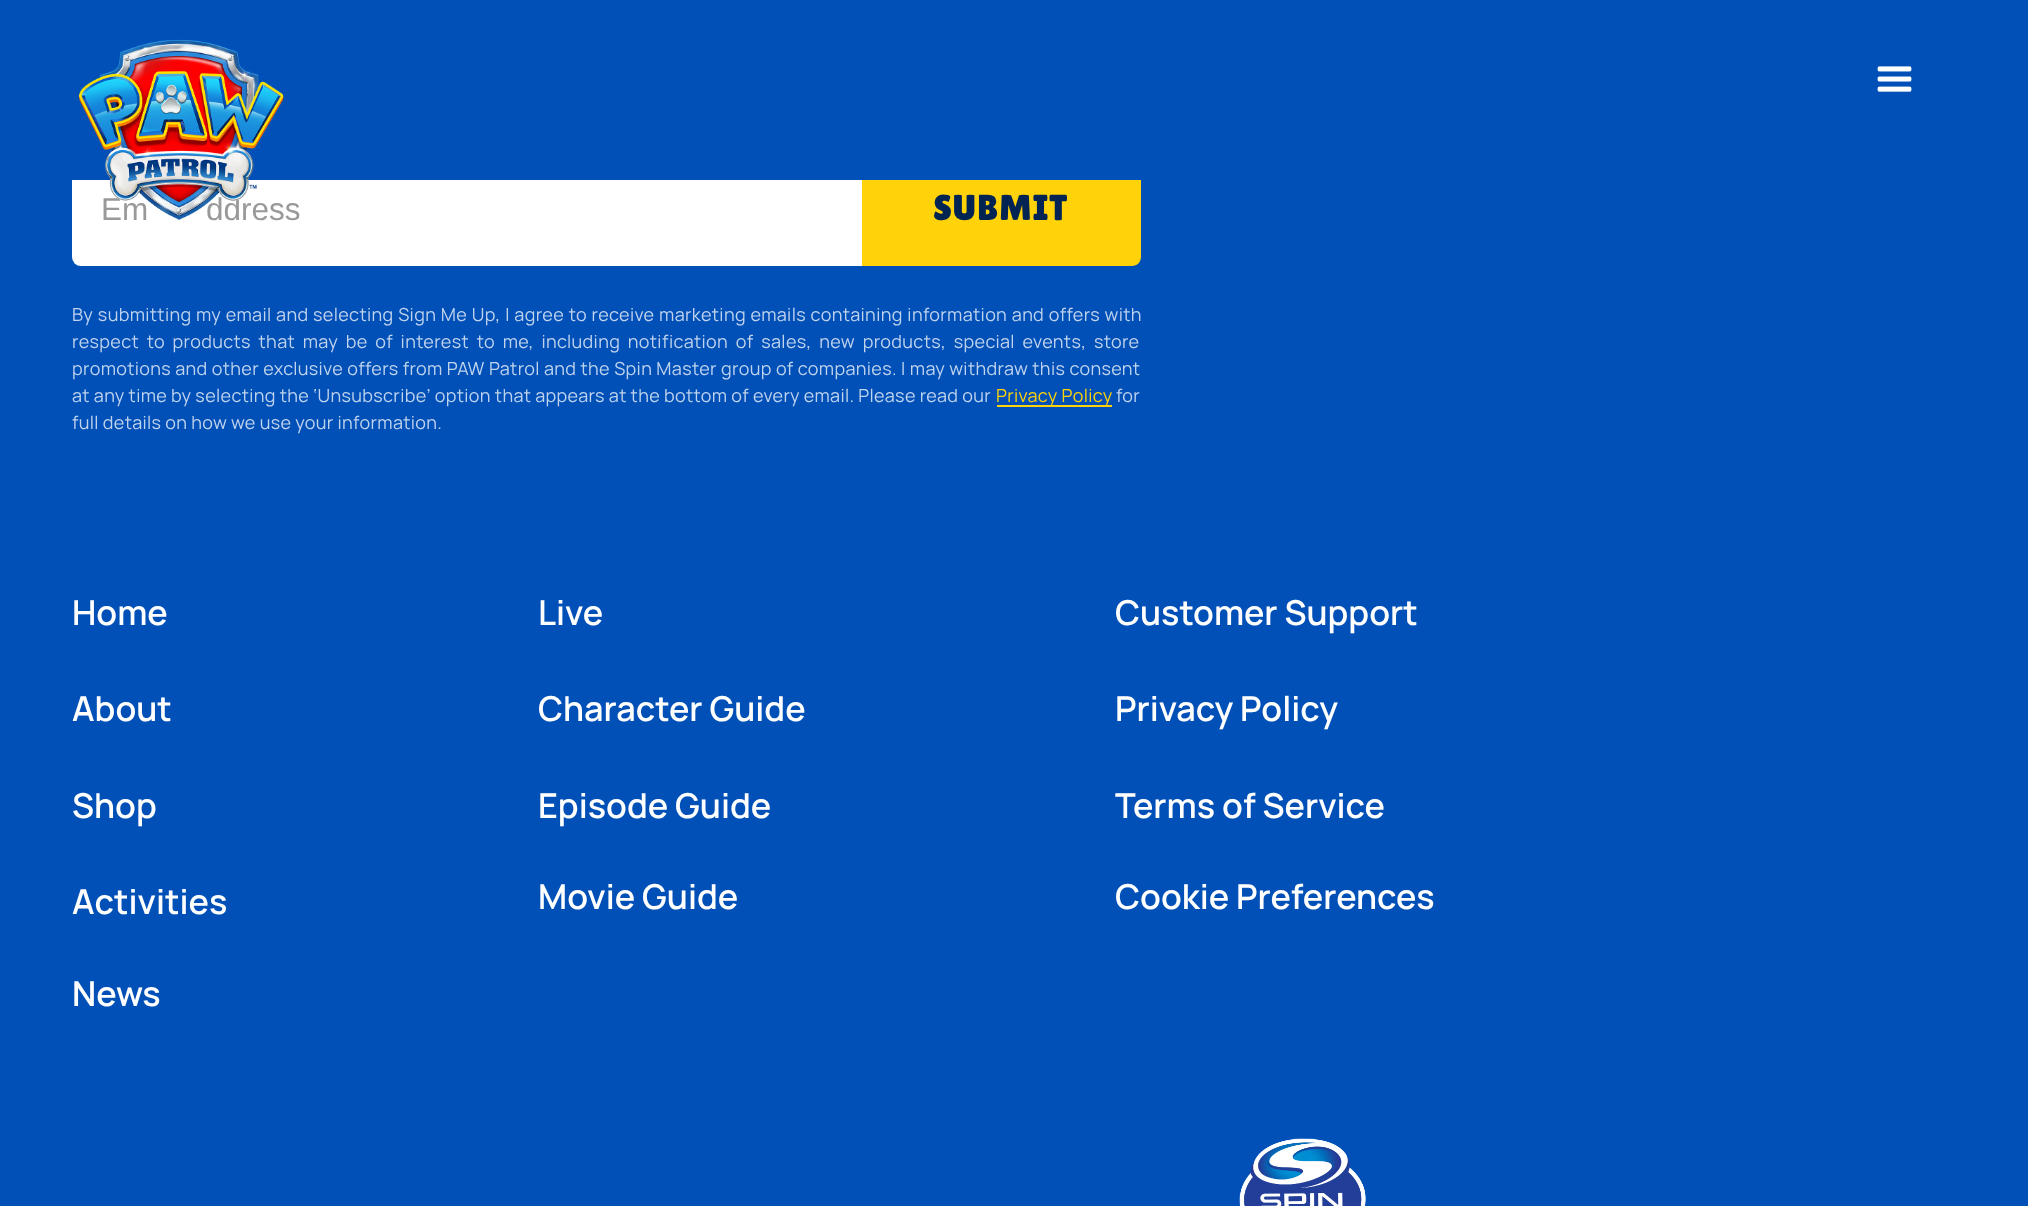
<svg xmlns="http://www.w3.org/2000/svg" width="2028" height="1206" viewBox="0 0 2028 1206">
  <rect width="100%" height="100%" fill="#0050b8"/>
  <path d="M81 154H861V265H81C76.5 265 73 261.5 73 257V162C73 157.5 76.5 154 81 154Z" fill="#ffffff" stroke="#ffffff" stroke-width="2"/>
  <path d="M862 153H1132C1137 153 1141 157 1141 162V257C1141 262 1137 266 1132 266H862Z" fill="#ffd209"/>
  <rect x="72" y="153" width="1069" height="27" fill="#0050b7"/>
  <text x="101" y="220" font-family="Liberation Sans" font-size="31.5" fill="#999999">Em</text>
  <text x="206" y="220" font-family="Liberation Sans" font-size="31.5" fill="#999999">ddress</text>
  <image x="79" y="39" width="205" height="181" href="img1.png"/>
  <image x="1877" y="66" width="35" height="26" href="img2.png"/>
  <text x="933" y="220" font-family="Lilita One" font-size="36" letter-spacing="1" fill="#012453">SUBMIT</text>
  <text x="72" y="321" word-spacing="0.7" font-family="Manrope" font-size="18" letter-spacing="0.34" fill="#bfd3ed">By submitting my email and selecting Sign Me Up, I agree to receive marketing emails containing information and offers with</text>
  <text x="72" y="348" word-spacing="3.75" font-family="Manrope" font-size="18" letter-spacing="0.34" fill="#bfd3ed">respect to products that may be of interest to me, including notification of sales, new products, special events, store</text>
  <text x="72" y="375" word-spacing="0.25" font-family="Manrope" font-size="18" letter-spacing="0.34" fill="#bfd3ed">promotions and other exclusive offers from PAW Patrol and the Spin Master group of companies. I may withdraw this consent</text>
  <text x="72" y="402" font-family="Manrope" font-size="18" letter-spacing="0.34" fill="#bfd3ed">at any time by selecting the ‘Unsubscribe’ option that appears at the bottom of every email. Please read our</text>
  <rect x="997" y="405" width="115" height="2" fill="#ffd209"/>
  <text x="996" y="402" font-family="Manrope" font-size="18" letter-spacing="0.34" fill="#ffd209">Privacy Policy</text>
  <text x="1116" y="402" font-family="Manrope" font-size="18" letter-spacing="0.34" fill="#bfd3ed">for</text>
  <text x="72" y="429" font-family="Manrope" font-size="18" letter-spacing="0.34" fill="#bfd3ed">full details on how we use your information.</text>
  <text x="72" y="625" font-family="Manrope" font-size="34.25" font-weight="600" fill="#ffffff">Home</text>
  <text x="72" y="721" font-family="Manrope" font-size="34.25" font-weight="600" fill="#ffffff">About</text>
  <text x="72" y="818" font-family="Manrope" font-size="34.25" font-weight="600" fill="#ffffff">Shop</text>
  <text x="72" y="914" font-family="Manrope" font-size="34.25" font-weight="600" fill="#ffffff">Activities</text>
  <text x="72" y="1006" font-family="Manrope" font-size="34.25" font-weight="600" fill="#ffffff">News</text>
  <text x="538" y="625" font-family="Manrope" font-size="34.25" font-weight="600" fill="#ffffff">Live</text>
  <text x="538" y="721" font-family="Manrope" font-size="34.25" font-weight="600" fill="#ffffff">Character Guide</text>
  <text x="538" y="818" font-family="Manrope" font-size="34.25" font-weight="600" fill="#ffffff">Episode Guide</text>
  <text x="538" y="909" font-family="Manrope" font-size="34.25" font-weight="600" fill="#ffffff">Movie Guide</text>
  <text x="1115" y="625" font-family="Manrope" font-size="34.25" font-weight="600" fill="#ffffff">Customer Support</text>
  <text x="1115" y="721" font-family="Manrope" font-size="34.25" font-weight="600" fill="#ffffff">Privacy Policy</text>
  <text x="1115" y="818" font-family="Manrope" font-size="34.25" font-weight="600" fill="#ffffff">Terms of Service</text>
  <text x="1115" y="909" font-family="Manrope" font-size="34.25" font-weight="600" fill="#ffffff">Cookie Preferences</text>
  <image x="1239" y="1138" width="127" height="68" href="img3.png"/>
</svg>
